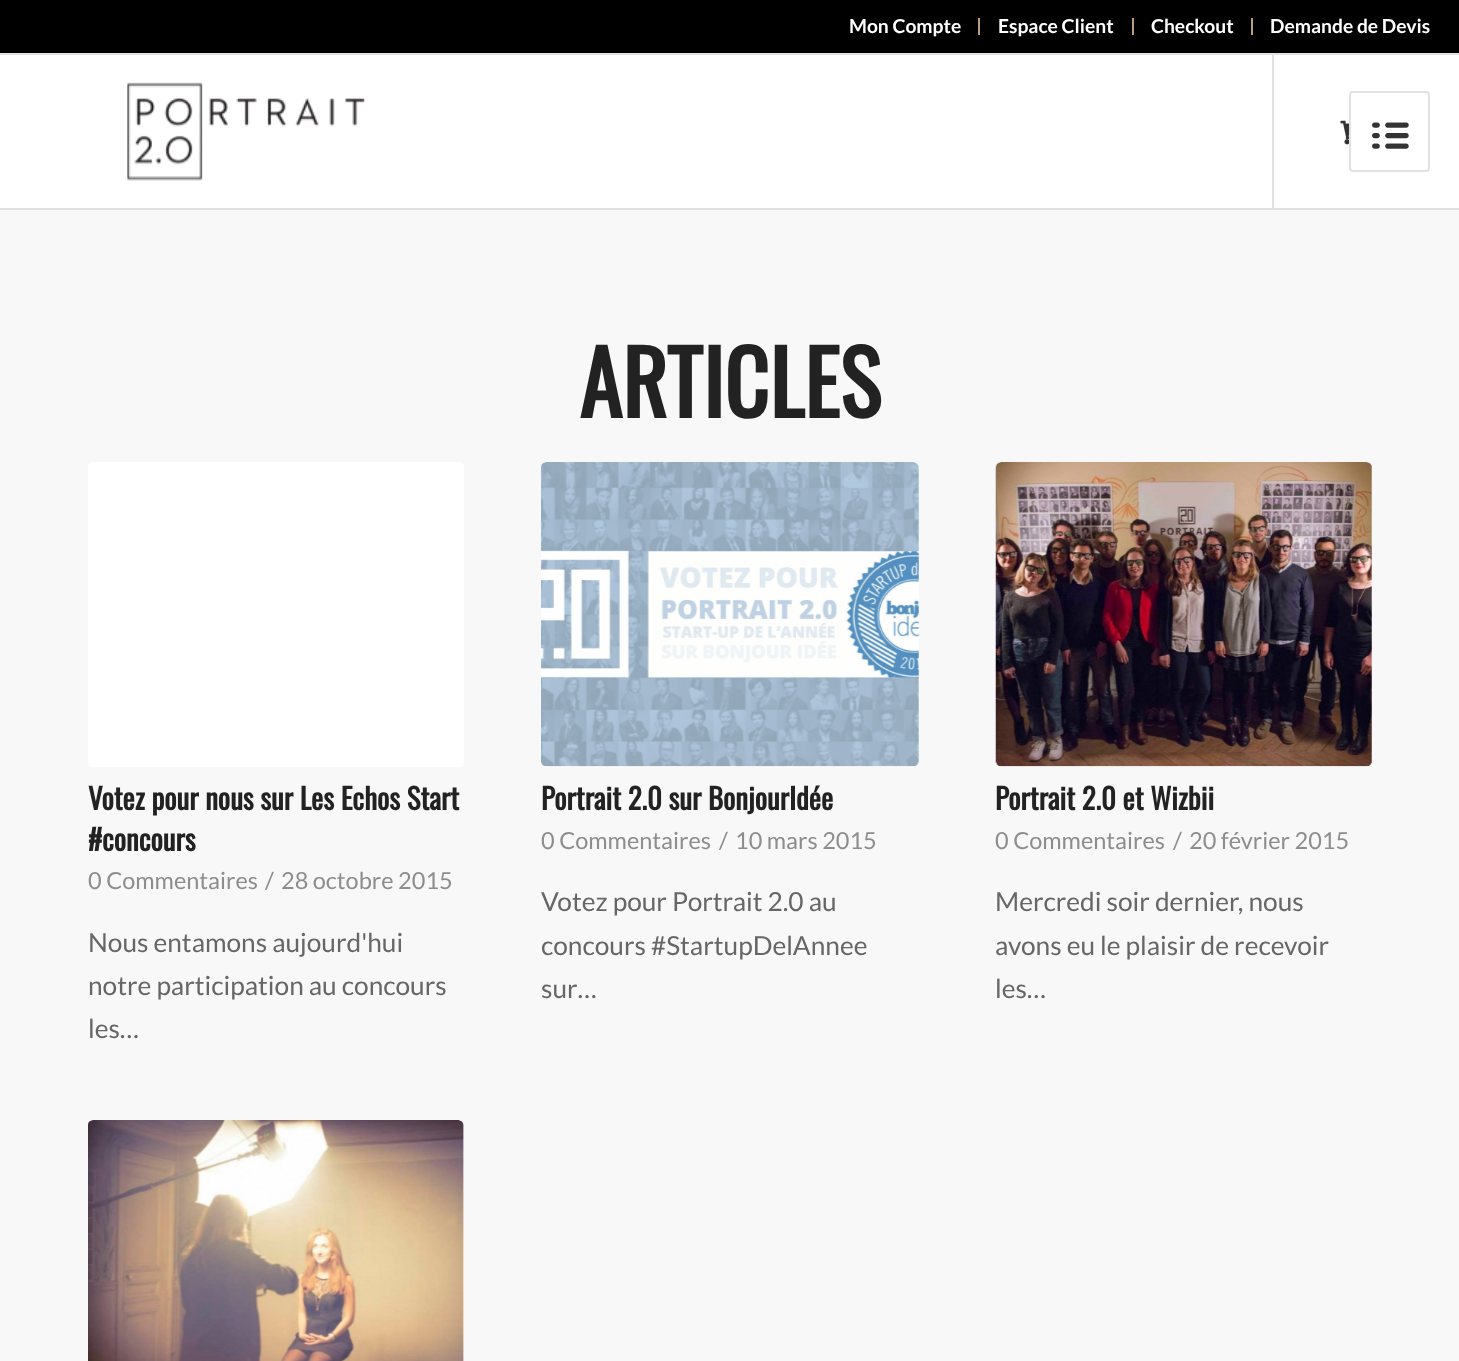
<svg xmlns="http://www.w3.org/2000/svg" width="1459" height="1361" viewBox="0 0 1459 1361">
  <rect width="100%" height="100%" fill="#f8f8f8"/>
  <rect x="0" y="0" width="1459" height="53" fill="#000000"/>
  <rect x="0" y="55" width="1459" height="153" fill="#ffffff"/>
  <rect x="1272" y="54" width="2" height="154" fill="#e1e1e1"/>
  <rect x="0" y="53" width="1459" height="2" fill="#e1e1e1"/>
  <rect x="978" y="18" width="2" height="17" fill="#ba9f7f"/>
  <text x="849" y="33" font-family="Lato" font-size="19.25" font-weight="bold" fill="#ffffff">Mon Compte</text>
  <rect x="1132" y="18" width="2" height="17" fill="#ba9f7f"/>
  <text x="998" y="33" font-family="Lato" font-size="19.25" font-weight="bold" fill="#ffffff">Espace Client</text>
  <rect x="1251" y="18" width="2" height="17" fill="#ba9f7f"/>
  <text x="1151" y="33" font-family="Lato" font-size="19.25" font-weight="bold" fill="#ffffff">Checkout</text>
  <text x="1270" y="33" font-family="Lato" font-size="19.25" font-weight="bold" fill="#ffffff">Demande de Devis</text>
  <rect x="0" y="208" width="1459" height="2" fill="#e1e1e1"/>
  <image x="127" y="82" width="238" height="99" href="img1.png"/>
  <image x="1340" y="120" width="9" height="25" href="img2.png"/>
  <rect x="1350" y="92" width="79" height="79" rx="3" fill="none" stroke="#e1e1e1" stroke-width="2"/>
  <image x="1372" y="122" width="37" height="27" href="img3.png"/>
  <text x="579" y="418" font-family="Oswald" font-size="87.5" font-weight="bold" fill="#222222">ARTICLES</text>
  <rect x="88" y="462" width="376" height="305" rx="5" fill="#ffffff"/>
  <text x="88" y="810" font-family="Oswald" font-size="28.9" font-weight="bold" fill="#222222">Votez pour nous sur Les Echos Start</text>
  <text x="88" y="851" font-family="Oswald" font-size="28.9" font-weight="bold" fill="#222222">#concours</text>
  <text x="88" y="889" font-family="Lato" font-size="23.5" fill="#8d8d8d">0 Commentaires</text>
  <text x="265" y="889" font-family="Lato" font-size="23.5" fill="#8d8d8d">/</text>
  <text x="281" y="889" font-family="Lato" font-size="23.5" fill="#8d8d8d">28 octobre 2015</text>
  <text x="88" y="952" font-family="Lato" font-size="26.25" fill="#666666">Nous entamons aujourd'hui</text>
  <text x="88" y="995" font-family="Lato" font-size="26.25" fill="#666666">notre participation au concours</text>
  <text x="88" y="1038" font-family="Lato" font-size="26.25" fill="#666666">les…</text>
  <rect x="541" y="462" width="378" height="305" rx="5" fill="#ffffff"/>
  <image x="541" y="462" width="378" height="305" href="img4.png"/>
  <text x="541" y="810" font-family="Oswald" font-size="28.9" font-weight="bold" fill="#222222">Portrait 2.0 sur BonjourIdée</text>
  <text x="541" y="849" font-family="Lato" font-size="23.5" fill="#8d8d8d">0 Commentaires</text>
  <text x="719" y="849" font-family="Lato" font-size="23.5" fill="#8d8d8d">/</text>
  <text x="735" y="849" font-family="Lato" font-size="23.5" fill="#8d8d8d">10 mars 2015</text>
  <text x="541" y="911" font-family="Lato" font-size="26.25" fill="#666666">Votez pour Portrait 2.0 au</text>
  <text x="541" y="955" font-family="Lato" font-size="26.25" fill="#666666">concours #StartupDelAnnee</text>
  <text x="541" y="998" font-family="Lato" font-size="26.25" fill="#666666">sur…</text>
  <rect x="996" y="462" width="376" height="305" rx="5" fill="#ffffff"/>
  <image x="995" y="462" width="377" height="305" href="img5.png"/>
  <text x="995" y="810" font-family="Oswald" font-size="28.9" font-weight="bold" fill="#222222">Portrait 2.0 et Wizbii</text>
  <text x="995" y="849" font-family="Lato" font-size="23.5" fill="#8d8d8d">0 Commentaires</text>
  <text x="1173" y="849" font-family="Lato" font-size="23.5" fill="#8d8d8d">/</text>
  <text x="1189" y="849" font-family="Lato" font-size="23.5" fill="#8d8d8d">20 février 2015</text>
  <text x="995" y="911" font-family="Lato" font-size="26.25" fill="#666666">Mercredi soir dernier, nous</text>
  <text x="995" y="955" font-family="Lato" font-size="26.25" fill="#666666">avons eu le plaisir de recevoir</text>
  <text x="995" y="998" font-family="Lato" font-size="26.25" fill="#666666">les…</text>
  <rect x="88" y="1120" width="376" height="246" rx="5" fill="#ffffff"/>
  <image x="88" y="1120" width="376" height="241" href="img6.png"/>
</svg>
